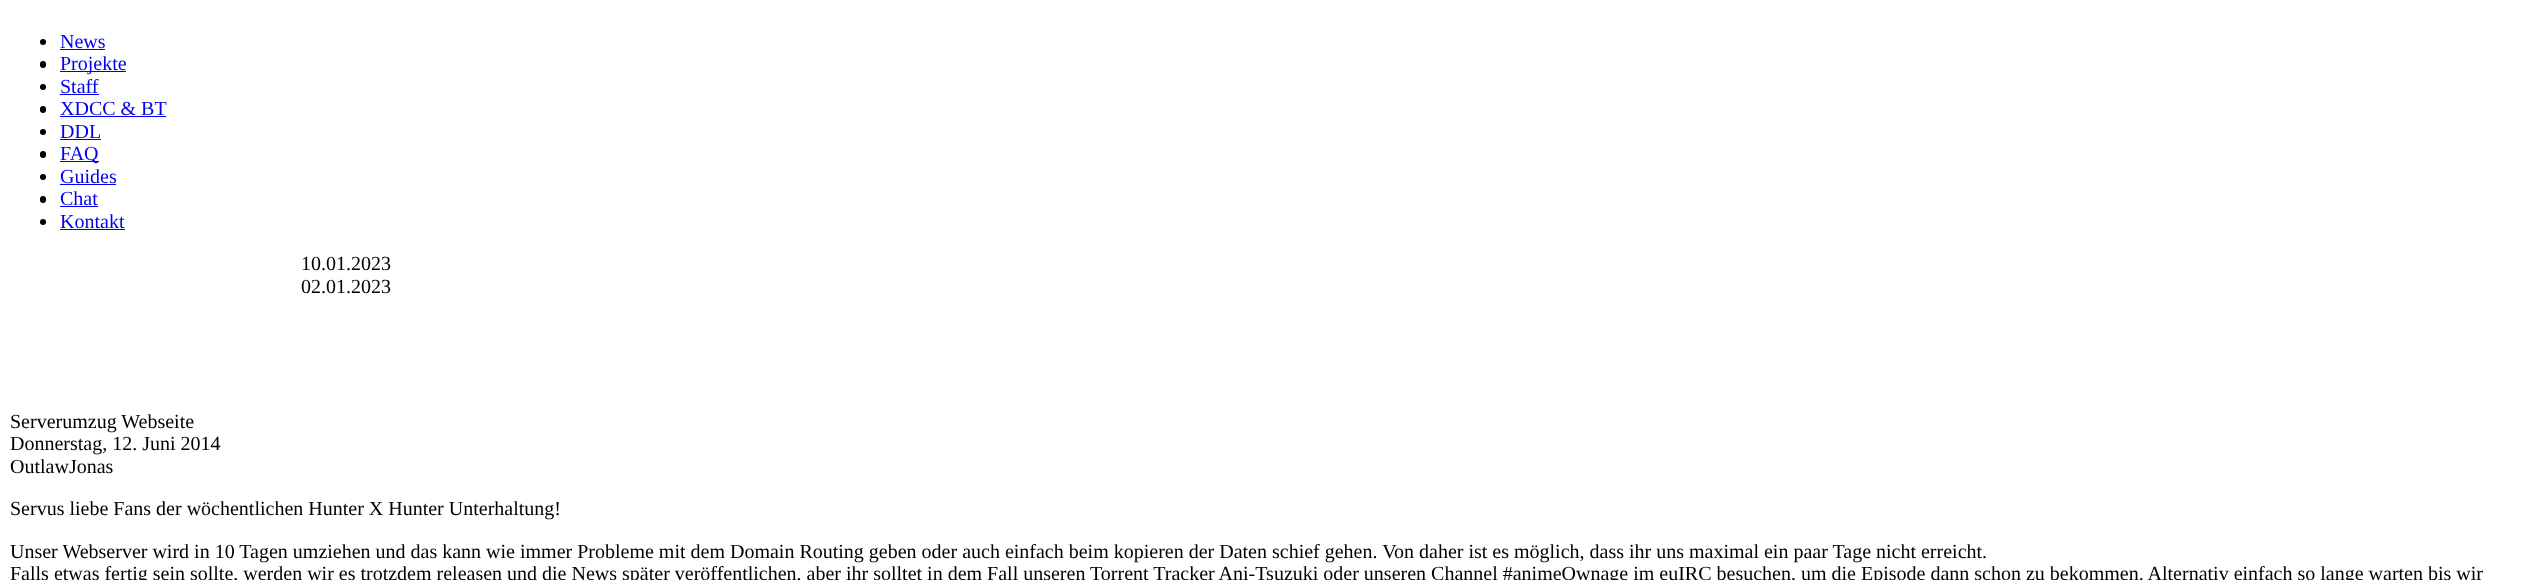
<svg xmlns="http://www.w3.org/2000/svg" width="2546" height="580" viewBox="0 0 2546 580">
  <rect width="100%" height="100%" fill="#ffffff"/>
  <circle cx="43" cy="42" r="3" fill="#000000"/>
  <text x="60" y="48" font-family="Liberation Serif" font-size="20" fill="#0000ee">News</text>
  <rect x="60" y="49" width="45" height="1" fill="#0000ee"/>
  <rect x="40" y="61" width="6" height="7" rx="3" fill="#000000"/>
  <rect x="60" y="71" width="66" height="1" fill="#0000ee"/>
  <text x="60" y="70" font-family="Liberation Serif" font-size="20" fill="#0000ee">Projekte</text>
  <circle cx="43" cy="87" r="3" fill="#000000"/>
  <text x="60" y="93" font-family="Liberation Serif" font-size="20" fill="#0000ee">Staff</text>
  <rect x="60" y="94" width="39" height="1" fill="#0000ee"/>
  <rect x="40" y="106" width="6" height="7" rx="3" fill="#000000"/>
  <text x="60" y="115" font-family="Liberation Serif" font-size="20" fill="#0000ee">XDCC &amp; BT</text>
  <rect x="60" y="116" width="106" height="1" fill="#0000ee"/>
  <circle cx="43" cy="132" r="3" fill="#000000"/>
  <text x="60" y="138" font-family="Liberation Serif" font-size="20" fill="#0000ee">DDL</text>
  <rect x="60" y="139" width="41" height="1" fill="#0000ee"/>
  <rect x="40" y="151" width="6" height="7" rx="3" fill="#000000"/>
  <rect x="60" y="161" width="39" height="1" fill="#0000ee"/>
  <text x="60" y="160" font-family="Liberation Serif" font-size="20" fill="#0000ee">FAQ</text>
  <circle cx="43" cy="177" r="3" fill="#000000"/>
  <text x="60" y="183" font-family="Liberation Serif" font-size="20" fill="#0000ee">Guides</text>
  <rect x="60" y="184" width="56" height="1" fill="#0000ee"/>
  <rect x="40" y="196" width="6" height="7" rx="3" fill="#000000"/>
  <text x="60" y="205" font-family="Liberation Serif" font-size="20" fill="#0000ee">Chat</text>
  <rect x="60" y="206" width="38" height="1" fill="#0000ee"/>
  <circle cx="43" cy="222" r="3" fill="#000000"/>
  <text x="60" y="228" font-family="Liberation Serif" font-size="20" fill="#0000ee">Kontakt</text>
  <rect x="60" y="229" width="65" height="1" fill="#0000ee"/>
  <text x="301" y="270" font-family="Liberation Serif" font-size="20" fill="#000000">10.01.2023</text>
  <text x="301" y="293" font-family="Liberation Serif" font-size="20" fill="#000000">02.01.2023</text>
  <text x="10" y="428" font-family="Liberation Serif" font-size="20" fill="#000000">Serverumzug Webseite</text>
  <text x="10" y="450" font-family="Liberation Serif" font-size="20" fill="#000000">Donnerstag, 12. Juni 2014</text>
  <text x="10" y="473" font-family="Liberation Serif" font-size="20" fill="#000000">OutlawJonas</text>
  <text x="10" y="515" font-family="Liberation Serif" font-size="20" fill="#000000">Servus liebe Fans der wöchentlichen Hunter X Hunter Unterhaltung!</text>
  <text x="10" y="558" font-family="Liberation Serif" font-size="20" fill="#000000">Unser Webserver wird in 10 Tagen umziehen und das kann wie immer Probleme mit dem Domain Routing geben oder auch einfach beim kopieren der Daten schief gehen. Von daher ist es möglich, dass ihr uns maximal ein paar Tage nicht erreicht.</text>
  <text x="10" y="580" font-family="Liberation Serif" font-size="20" fill="#000000">Falls etwas fertig sein sollte, werden wir es trotzdem releasen und die News später veröffentlichen, aber ihr solltet in dem Fall unseren Torrent Tracker Ani-Tsuzuki oder unseren Channel #animeOwnage im euIRC besuchen, um die Episode dann schon zu bekommen. Alternativ einfach so lange warten bis wir</text>
</svg>
